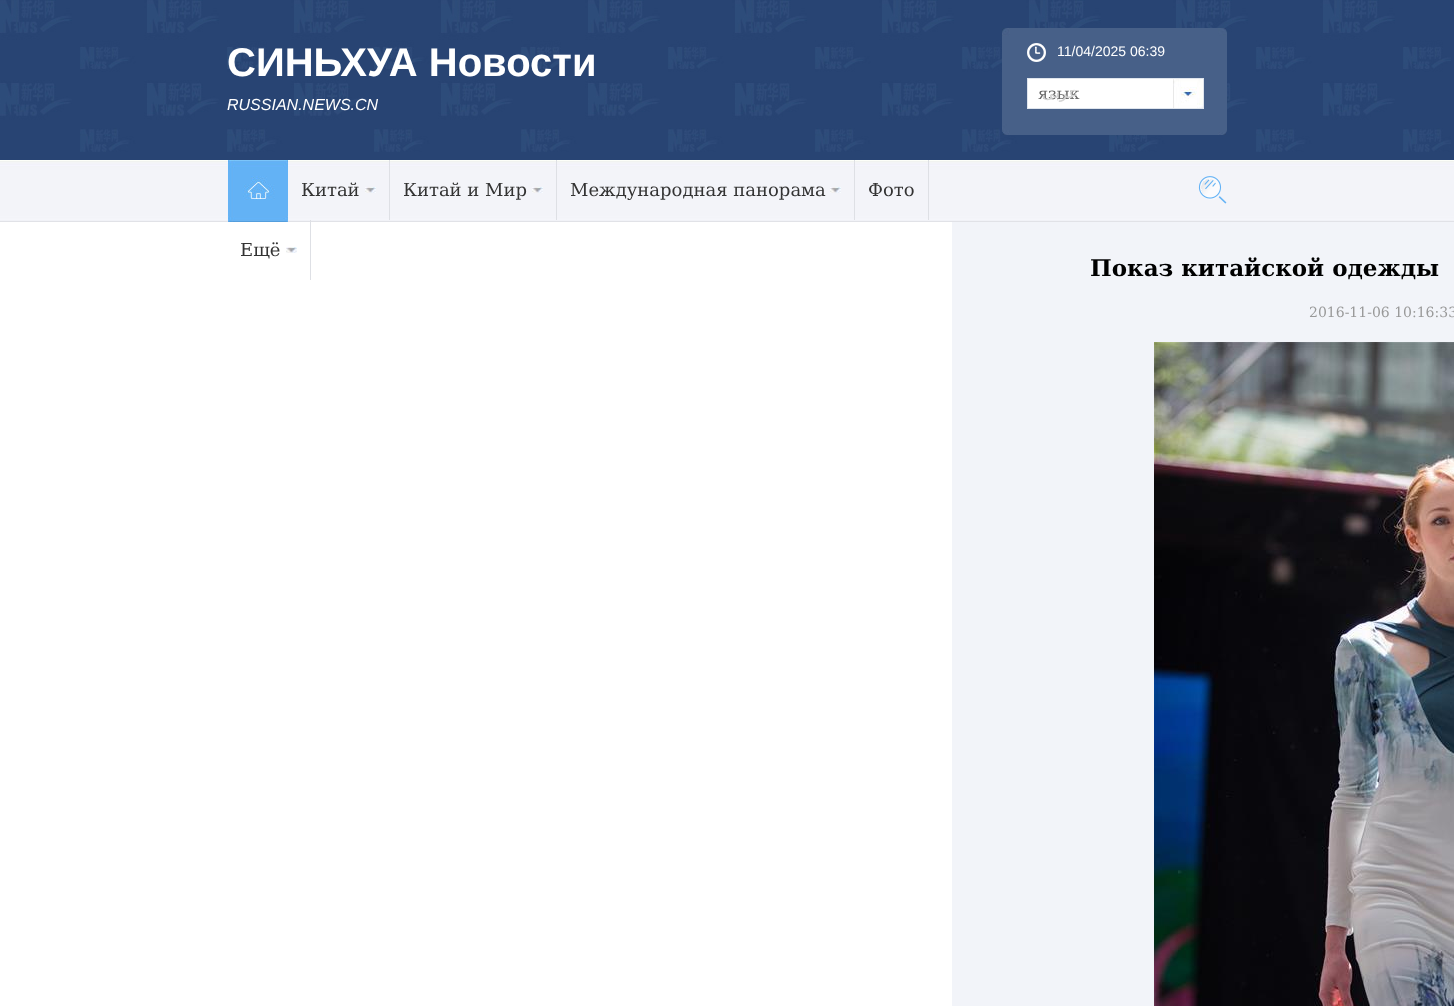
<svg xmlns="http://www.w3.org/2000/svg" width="1454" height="1006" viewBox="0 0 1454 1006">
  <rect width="100%" height="100%" fill="#ffffff"/>
  <rect x="0" y="0" width="1454" height="160" fill="#284473"/>
  <image x="0" y="0" width="1451" height="152" href="img1.png"/>
  <text x="227" y="76" font-family="Liberation Sans" font-size="40" font-weight="bold" fill="#ffffff">СИНЬХУА Новости</text>
  <text x="227" y="110" font-family="Liberation Sans" font-size="16" font-style="italic" fill="#ffffff">RUSSIAN.NEWS.CN</text>
  <image x="1002" y="28" width="225" height="107" href="img2.png"/>
  <image x="1027" y="43" width="19" height="19" href="img3.png"/>
  <text x="1057" y="56" font-family="Liberation Sans" font-size="14" fill="#ffffff">11/04/2025 06:39</text>
  <rect x="1028" y="79" width="145" height="29" fill="#ffffff"/>
  <image x="1173" y="79" width="30" height="29" href="img4.png"/>
  <rect x="1027.5" y="78.5" width="176" height="30" fill="none" stroke="#dfe5ed"/>
  <text x="1038" y="99" font-family="DejaVu Serif" font-size="16" fill="#666666">язык</text>
  <text x="1078" y="98" font-family="DejaVu Sans" font-size="16" direction="rtl" fill="#d4d4d4">عربى</text>
  <image x="0" y="160" width="1454" height="62" href="img5.png"/>
  <image x="227" y="160" width="61" height="62" href="img6.png"/>
  <rect x="389" y="160" width="1" height="60" fill="#dee0e5"/>
  <text x="301" y="196" font-family="DejaVu Serif" font-size="18" fill="#333333">Китай</text>
  <image x="365" y="187" width="11" height="6" href="img7.png"/>
  <rect x="556" y="160" width="1" height="60" fill="#dee0e5"/>
  <text x="403" y="196" font-family="DejaVu Serif" font-size="18" fill="#333333">Китай и Мир</text>
  <image x="532" y="187" width="11" height="6" href="img7.png"/>
  <rect x="854" y="160" width="1" height="60" fill="#dee0e5"/>
  <text x="570" y="196" font-family="DejaVu Serif" font-size="18" fill="#333333">Международная панорама</text>
  <image x="830" y="187" width="11" height="6" href="img7.png"/>
  <rect x="928" y="160" width="1" height="60" fill="#dee0e5"/>
  <text x="868" y="196" font-family="DejaVu Serif" font-size="18" fill="#333333">Фото</text>
  <rect x="310" y="220" width="1" height="60" fill="#dee0e5"/>
  <text x="240" y="256" font-family="DejaVu Serif" font-size="18" fill="#333333">Ещё</text>
  <image x="286" y="247" width="11" height="6" href="img7.png"/>
  <image x="1198" y="176" width="29" height="28" href="img8.png"/>
  <rect x="952" y="222" width="502" height="784" fill="#f2f4f9"/>
  <text x="1090" y="276" font-family="DejaVu Serif" font-size="23" font-weight="bold" fill="#000000">Показ китайской одежды</text>
  <text x="1309" y="317" font-family="DejaVu Serif" font-size="14" fill="#999999">2016-11-06 10:16:33</text>
  <image x="1154" y="342" width="300" height="664" href="img9.png"/>
</svg>
